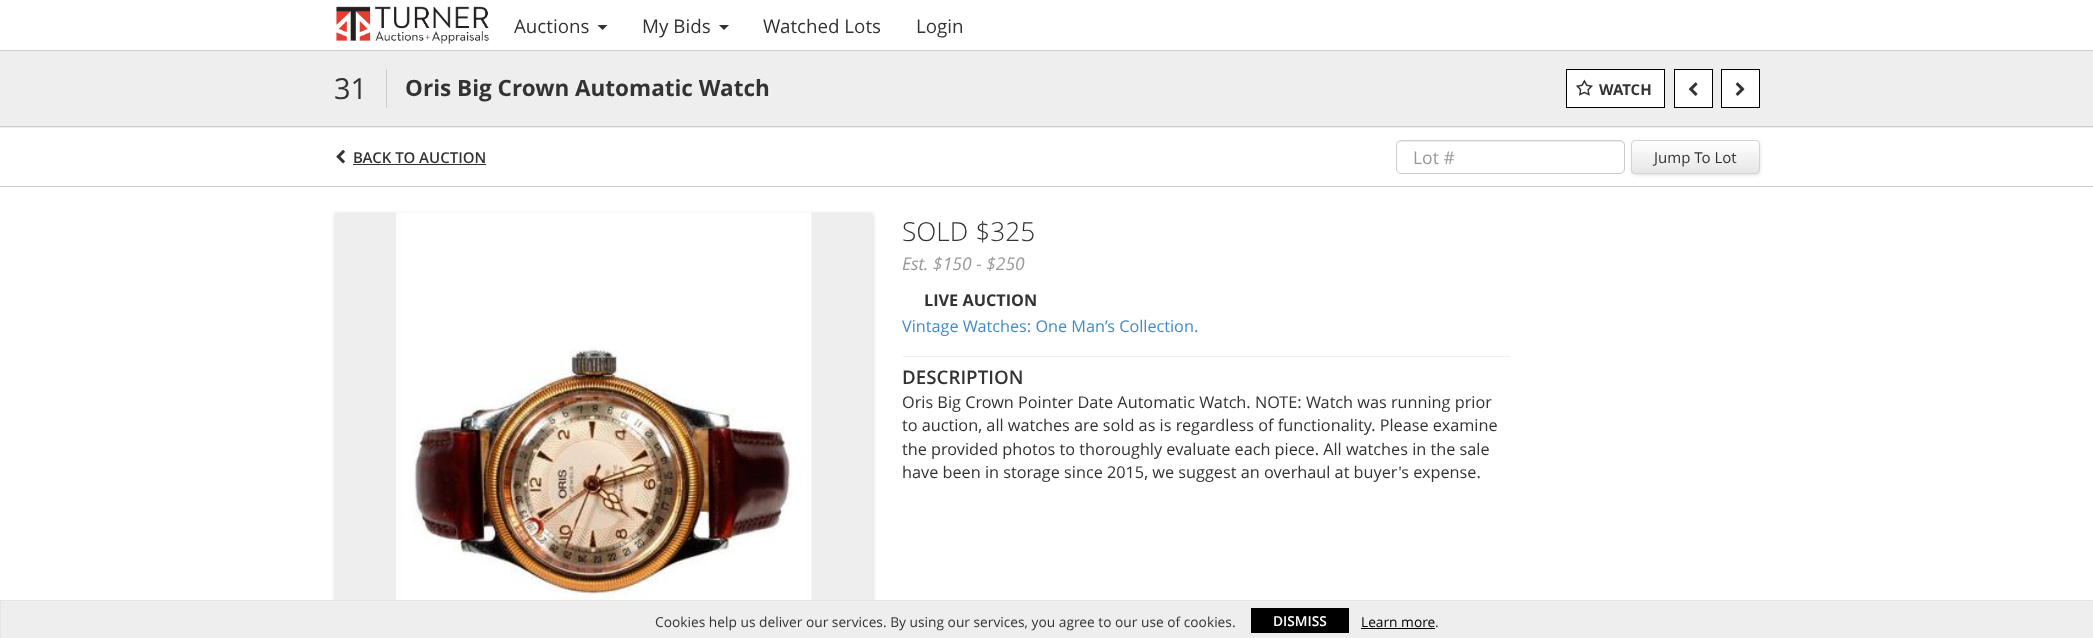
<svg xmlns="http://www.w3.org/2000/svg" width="2093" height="638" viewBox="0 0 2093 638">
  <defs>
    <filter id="blur1" x="-50%" y="-200%" width="200%" height="500%"><feGaussianBlur stdDeviation="2"/></filter>
    <clipPath id="clip1"><rect x="1631" y="140" width="129" height="34" rx="4"/></clipPath>
    <linearGradient id="g1" gradientUnits="userSpaceOnUse" x1="1696" y1="141" x2="1696" y2="173"><stop offset="0" stop-color="#ffffff"/><stop offset="1" stop-color="#e6e6e6"/></linearGradient>
  </defs>
  <rect width="100%" height="100%" fill="#ffffff"/>
  <image x="336" y="6" width="153" height="38" href="img1.png"/>
  <text x="514" y="33" font-family="Open Sans" font-size="18.75" fill="#333333">Auctions</text>
  <path d="M597.5 25H607.5L602.5 30Z" fill="#333333"/>
  <text x="642" y="33" font-family="Open Sans" font-size="18.75" fill="#333333">My Bids</text>
  <path d="M719 25H729L724 30Z" fill="#333333"/>
  <text x="763" y="33" font-family="Open Sans" font-size="18.75" fill="#333333">Watched Lots</text>
  <text x="916" y="33" font-family="Open Sans" font-size="18.75" fill="#333333">Login</text>
  <rect x="0" y="50" width="2093" height="1" fill="#cccccc"/>
  <rect x="0" y="51" width="2093" height="77" fill="#eeeeee"/>
  <rect x="0" y="126" width="2093" height="1" fill="#cccccc"/>
  <rect x="335" y="126" width="1425" height="1" fill="#eeeeee"/>
  <rect x="335" y="126" width="1425" height="1" fill="#cccccc"/>
  <text x="334" y="99" font-family="Open Sans" font-size="29" fill="#333333">31</text>
  <rect x="386" y="69" width="1" height="39" fill="#cccccc"/>
  <text x="405" y="96" font-family="Open Sans" font-size="22.5" font-weight="bold" fill="#333333">Oris Big Crown Automatic Watch</text>
  <rect x="1566.5" y="69.5" width="98" height="38" fill="#ffffff" stroke="#000000"/>
  <image x="1576" y="79" width="17" height="17" href="img2.png"/>
  <text x="1599" y="95" font-family="Open Sans" font-size="15" font-weight="bold" fill="#333333">WATCH</text>
  <rect x="1674.5" y="69.5" width="38" height="38" fill="#ffffff" stroke="#000000"/>
  <image x="1688" y="82" width="10" height="14" href="img3.png"/>
  <rect x="1721.5" y="69.5" width="38" height="38" fill="#ffffff" stroke="#000000"/>
  <image x="1735" y="82" width="10" height="14" href="img4.png"/>
  <rect x="0" y="186" width="2093" height="1" fill="#cccccc"/>
  <rect x="335" y="186" width="1425" height="1" fill="#ffffff"/>
  <rect x="335" y="186" width="1425" height="1" fill="#cccccc"/>
  <image x="336" y="149" width="9" height="15" href="img5.png"/>
  <text x="353" y="163" font-family="Open Sans" font-size="15" font-weight="600" fill="#333333">BACK TO AUCTION</text>
  <rect x="353" y="164" width="133" height="1" fill="#333333"/>
  <path d="M1401 142H1620C1622 142 1624 144 1624 146C1624 143 1623 141 1620 141H1402C1399 141 1398 143 1398 146C1398 144 1399 142 1401 142Z" fill="#ececec"/>
  <rect x="1396.5" y="140.5" width="228" height="33" rx="4.5" fill="none" stroke="#cccccc"/>
  <text x="1413" y="164" font-family="Open Sans" font-size="17.5" fill="#999999">Lot #</text>
  <rect x="1633" y="143" width="126" height="31" rx="2.5" fill="#000000" fill-opacity="0.2" filter="url(#blur1)"/>
  <g clip-path="url(#clip1)">
    <rect x="1631" y="141" width="129" height="32" fill="url(#g1)"/>
  </g>
  <rect x="1631.5" y="140.5" width="128" height="33" rx="3.5" fill="none" stroke="#d4d4d4"/>
  <text x="1654" y="163" font-family="Open Sans" font-size="15" fill="#333333">Jump To Lot</text>
  <rect x="335" y="214" width="538" height="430" fill="#dad9d7" filter="url(#blur1)"/>
  <image x="335" y="212" width="538" height="388" href="img6.png"/>
  <text x="902" y="241" font-family="Open Sans" font-size="26.25" font-weight="300" fill="#333333">SOLD $325</text>
  <text x="902" y="270" font-family="Open Sans" font-size="17.5" font-style="italic" fill="#999999">Est. $150 - $250</text>
  <text x="924" y="306" font-family="Open Sans" font-size="16.25" font-weight="bold" fill="#333333">LIVE AUCTION</text>
  <text x="902" y="332" font-family="Open Sans" font-size="16.25" fill="#428bca">Vintage Watches: One Man’s Collection.</text>
  <rect x="903" y="356" width="607" height="1" fill="#eeeeee"/>
  <text x="902" y="384" font-family="Open Sans" font-size="18.75" font-weight="600" fill="#333333">DESCRIPTION</text>
  <text x="902" y="408" font-family="Open Sans" font-size="16.25" fill="#333333">Oris Big Crown Pointer Date Automatic Watch. NOTE: Watch was running prior</text>
  <text x="902" y="431" font-family="Open Sans" font-size="16.25" fill="#333333">to auction, all watches are sold as is regardless of functionality. Please examine</text>
  <text x="902" y="455" font-family="Open Sans" font-size="16.25" fill="#333333">the provided photos to thoroughly evaluate each piece. All watches in the sale</text>
  <text x="902" y="478" font-family="Open Sans" font-size="16.25" fill="#333333">have been in storage since 2015, we suggest an overhaul at buyer's expense.</text>
  <rect x="1" y="601" width="2092" height="37" fill="#eeeeee"/>
  <rect x="0" y="600" width="2093" height="1" fill="#e4e4e4"/>
  <rect x="0" y="600" width="1" height="38" fill="#e4e4e4"/>
  <text x="655" y="627" font-family="Open Sans" font-size="13.75" fill="#333333">Cookies help us deliver our services. By using our services, you agree to our use of cookies.</text>
  <rect x="1251" y="608" width="98" height="25" fill="#000000"/>
  <text x="1273" y="626" font-family="Open Sans" font-size="13.75" font-weight="600" fill="#ffffff">DISMISS</text>
  <text x="1361" y="627" font-family="Open Sans" font-size="13.75" fill="#000000">Learn more</text>
  <rect x="1361" y="628" width="74" height="1" fill="#000000"/>
  <text x="1435" y="627" font-family="Open Sans" font-size="13.75" fill="#333333">.</text>
</svg>
